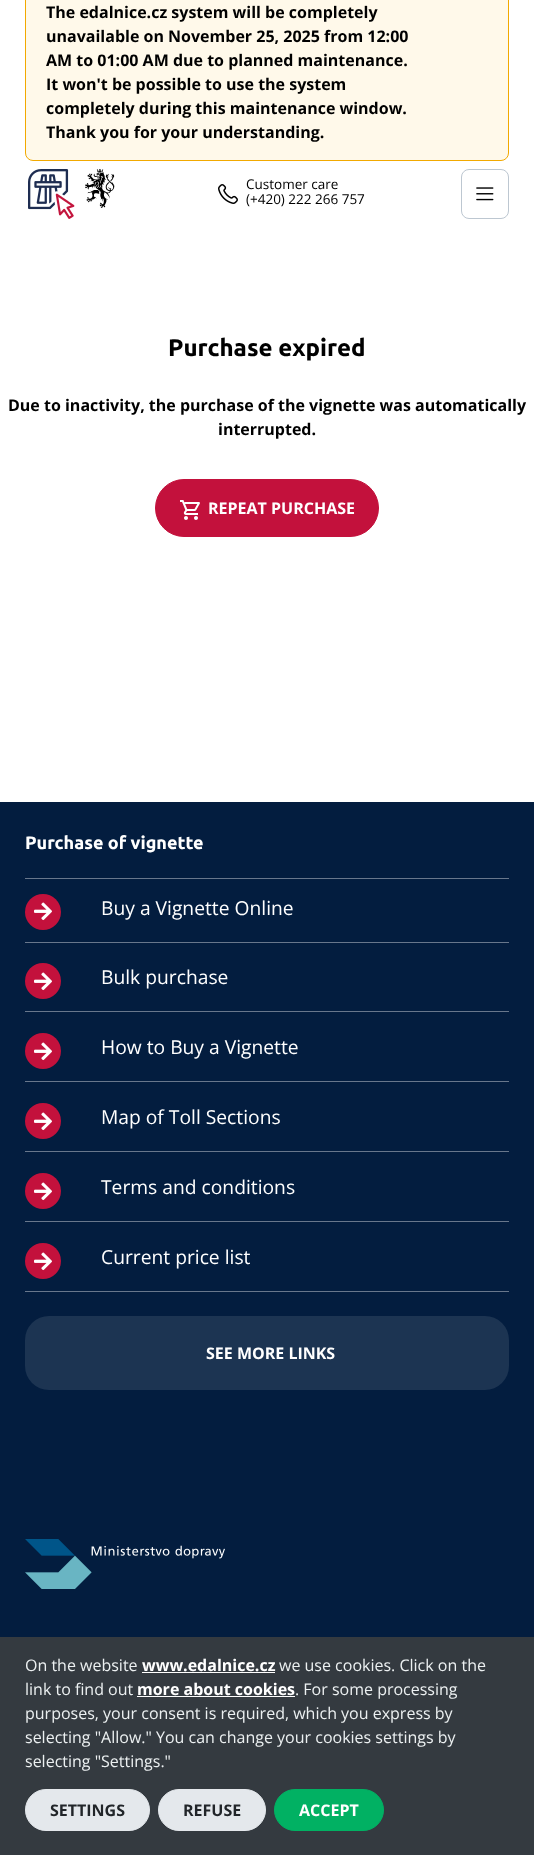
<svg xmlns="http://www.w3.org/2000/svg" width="534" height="1855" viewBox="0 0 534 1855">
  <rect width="100%" height="100%" fill="#ffffff"/>
  <rect x="25.5" y="-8.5" width="483" height="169" rx="7.5" fill="#fff9ea" stroke="#f2a900"/>
  <text x="46" y="18" font-family="Open Sans" font-size="16" font-weight="bold" fill="#000000">The edalnice.cz system will be completely</text>
  <text x="46" y="42" font-family="Open Sans" font-size="16" font-weight="bold" fill="#000000">unavailable on November 25, 2025 from 12:00</text>
  <text x="46" y="66" font-family="Open Sans" font-size="16" font-weight="bold" fill="#000000">AM to 01:00 AM due to planned maintenance.</text>
  <text x="46" y="90" font-family="Open Sans" font-size="16" font-weight="bold" fill="#000000">It won't be possible to use the system</text>
  <text x="46" y="114" font-family="Open Sans" font-size="16" font-weight="bold" fill="#000000">completely during this maintenance window.</text>
  <text x="46" y="138" font-family="Open Sans" font-size="16" font-weight="bold" fill="#000000">Thank you for your understanding.</text>
  <image x="28" y="169" width="47" height="50" href="img1.png"/>
  <image x="85" y="169" width="30" height="39" href="img2.png"/>
  <image x="218" y="184" width="20" height="20" href="img3.png"/>
  <text x="246" y="189" font-family="Open Sans" font-size="13.5" fill="#000000">Customer care</text>
  <text x="246" y="204" font-family="Open Sans" font-size="13.5" fill="#000000">(+420) 222 266 757</text>
  <rect x="461.5" y="169.5" width="47" height="49" rx="7.5" fill="none" stroke="#bdc7d1"/>
  <image x="476" y="187" width="18" height="14" href="img4.png"/>
  <text x="168" y="356" font-family="Ubuntu" font-size="24" font-weight="bold" fill="#000000">Purchase expired</text>
  <text x="8" y="411" font-family="Open Sans" font-size="16" font-weight="bold" fill="#000000">Due to inactivity, the purchase of the vignette was automatically</text>
  <text x="218" y="435" font-family="Open Sans" font-size="16" font-weight="bold" fill="#000000">interrupted.</text>
  <rect x="155.5" y="479.5" width="223" height="57" rx="28.5" fill="#c3113c" stroke="#c3113c"/>
  <image x="180" y="500" width="20" height="20" href="img5.png"/>
  <text x="208" y="514" font-family="Open Sans" font-size="16" font-weight="bold" fill="#ffffff">REPEAT PURCHASE</text>
  <rect x="0" y="802" width="534" height="835" fill="#031d3f"/>
  <text x="25" y="849" font-family="Ubuntu" font-size="18" font-weight="bold" fill="#ffffff">Purchase of vignette</text>
  <rect x="25" y="878" width="484" height="1" fill="#68778c"/>
  <rect x="25" y="942" width="484" height="1" fill="#68778c"/>
  <circle cx="43" cy="912" r="18" fill="#c3113c"/>
  <image x="34" y="902" width="18" height="19" href="img6.png"/>
  <text x="101" y="915" font-family="Open Sans" font-size="19.25" fill="#ffffff">Buy a Vignette Online</text>
  <rect x="25" y="1011" width="484" height="1" fill="#68778c"/>
  <circle cx="43" cy="981" r="18" fill="#c3113c"/>
  <image x="34" y="972" width="18" height="19" href="img6.png"/>
  <text x="101" y="984" font-family="Open Sans" font-size="19.25" fill="#ffffff">Bulk purchase</text>
  <rect x="25" y="1081" width="484" height="1" fill="#68778c"/>
  <circle cx="43" cy="1051" r="18" fill="#c3113c"/>
  <image x="34" y="1042" width="18" height="19" href="img6.png"/>
  <text x="101" y="1054" font-family="Open Sans" font-size="19.25" fill="#ffffff">How to Buy a Vignette</text>
  <rect x="25" y="1151" width="484" height="1" fill="#68778c"/>
  <circle cx="43" cy="1121" r="18" fill="#c3113c"/>
  <image x="34" y="1112" width="18" height="19" href="img6.png"/>
  <text x="101" y="1124" font-family="Open Sans" font-size="19.25" fill="#ffffff">Map of Toll Sections</text>
  <rect x="25" y="1221" width="484" height="1" fill="#68778c"/>
  <circle cx="43" cy="1191" r="18" fill="#c3113c"/>
  <image x="34" y="1182" width="18" height="19" href="img6.png"/>
  <text x="101" y="1194" font-family="Open Sans" font-size="19.25" fill="#ffffff">Terms and conditions</text>
  <rect x="25" y="1291" width="484" height="1" fill="#68778c"/>
  <circle cx="43" cy="1261" r="18" fill="#c3113c"/>
  <image x="34" y="1252" width="18" height="19" href="img6.png"/>
  <text x="101" y="1264" font-family="Open Sans" font-size="19.25" fill="#ffffff">Current price list</text>
  <rect x="25" y="1316" width="484" height="74" rx="24" fill="#1c3452"/>
  <text x="206" y="1359" font-family="Open Sans" font-size="16" font-weight="bold" fill="#ffffff">SEE MORE LINKS</text>
  <image x="25" y="1539" width="200" height="50" href="img7.png"/>
  <rect x="0" y="1637" width="534" height="218" fill="#343a40"/>
  <text x="25" y="1671" font-family="Open Sans" font-size="16" fill="#ecf0f1">On the website</text>
  <text x="142" y="1671" font-family="Open Sans" font-size="16" font-weight="bold" fill="#ffffff">www.edalnice.cz</text>
  <rect x="142" y="1672" width="133" height="1" fill="#ffffff"/>
  <text x="279" y="1671" font-family="Open Sans" font-size="16" fill="#ecf0f1">we use cookies. Click on the</text>
  <text x="25" y="1695" font-family="Open Sans" font-size="16" fill="#ecf0f1">link to find out</text>
  <text x="137" y="1695" font-family="Open Sans" font-size="16" font-weight="bold" fill="#ffffff">more about cookies</text>
  <rect x="137" y="1696" width="158" height="1" fill="#ffffff"/>
  <text x="295" y="1695" font-family="Open Sans" font-size="16" fill="#ecf0f1">. For some processing</text>
  <text x="25" y="1719" font-family="Open Sans" font-size="16" fill="#ecf0f1">purposes, your consent is required, which you express by</text>
  <text x="25" y="1743" font-family="Open Sans" font-size="16" fill="#ecf0f1">selecting "Allow." You can change your cookies settings by</text>
  <text x="25" y="1767" font-family="Open Sans" font-size="16" fill="#ecf0f1">selecting "Settings."</text>
  <rect x="25.5" y="1789.5" width="124" height="41" rx="20.5" fill="#e4e8ec" stroke="#e4e8ec"/>
  <text x="50" y="1816" font-family="Open Sans" font-size="16" font-weight="bold" fill="#212529">SETTINGS</text>
  <rect x="158.5" y="1789.5" width="107" height="41" rx="20.5" fill="#e4e8ec" stroke="#e4e8ec"/>
  <text x="183" y="1816" font-family="Open Sans" font-size="16" font-weight="bold" fill="#212529">REFUSE</text>
  <rect x="274.5" y="1789.5" width="109" height="41" rx="20.5" fill="#01b163" stroke="#01b163"/>
  <text x="299" y="1816" font-family="Open Sans" font-size="16" font-weight="bold" fill="#ffffff">ACCEPT</text>
</svg>
